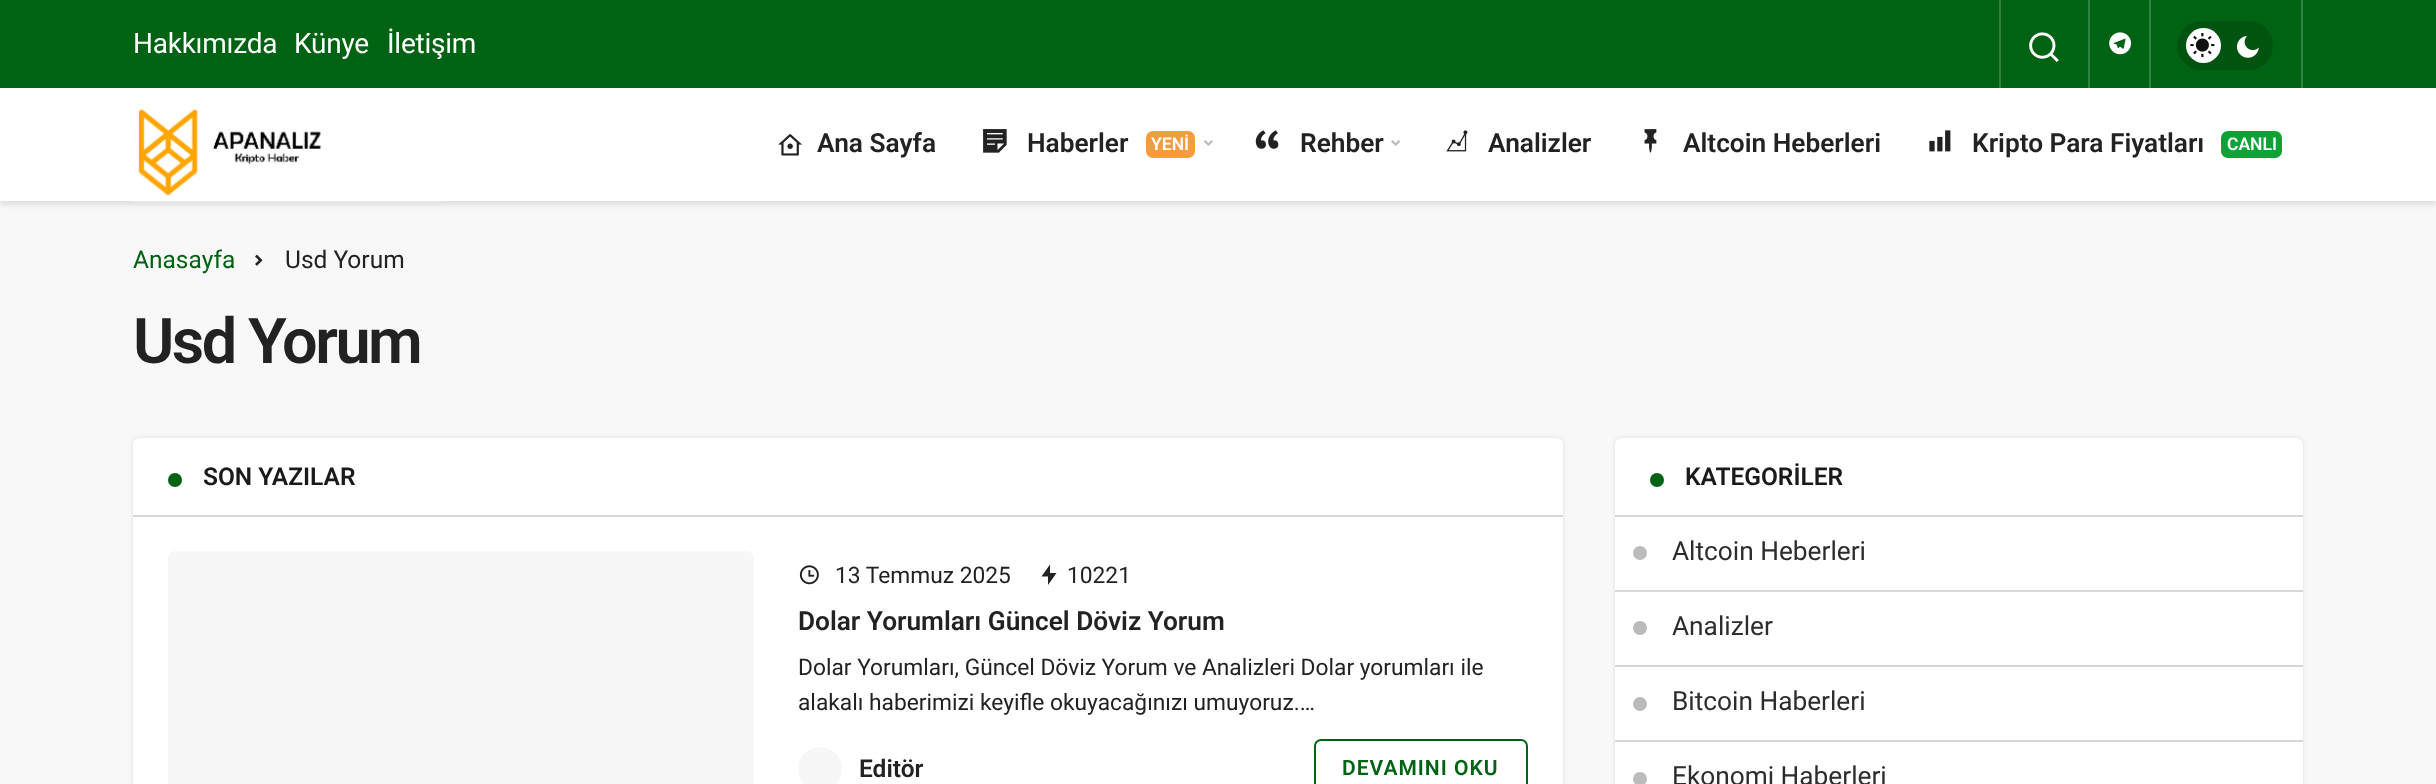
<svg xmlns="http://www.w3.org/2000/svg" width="2436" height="784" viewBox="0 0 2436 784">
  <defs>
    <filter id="blur1" x="-50%" y="-200%" width="200%" height="500%"><feGaussianBlur stdDeviation="2.5"/></filter>
  </defs>
  <rect width="100%" height="100%" fill="#f8f8f8"/>
  <rect x="0" y="91" width="2436" height="114" fill="#000000" fill-opacity="0.1" filter="url(#blur1)"/>
  <rect x="0" y="0" width="2436" height="88" fill="#006313"/>
  <text x="133" y="53" font-family="Roboto" font-size="28" letter-spacing="-0.25" fill="#ffffff">Hakkımızda</text>
  <text x="294" y="53" font-family="Roboto" font-size="28" letter-spacing="-0.25" fill="#ffffff">Künye</text>
  <text x="387" y="53" font-family="Roboto" font-size="28" letter-spacing="-0.25" fill="#ffffff">İletişim</text>
  <rect x="2301" y="0" width="2" height="88" fill="#338242"/>
  <rect x="1999" y="0" width="2" height="88" fill="#338242"/>
  <rect x="2088" y="0" width="2" height="88" fill="#338242"/>
  <image x="2029" y="32" width="30" height="30" href="img1.png"/>
  <rect x="2149" y="0" width="2" height="88" fill="#338242"/>
  <image x="2109" y="32" width="23" height="23" href="img2.png"/>
  <rect x="2177" y="21" width="96" height="49" rx="24.5" fill="#005410"/>
  <circle cx="2203.5" cy="45.5" r="17.5" fill="#ffffff"/>
  <image x="2190" y="33" width="25" height="25" href="img3.png"/>
  <image x="2236" y="35" width="23" height="23" href="img4.png"/>
  <rect x="0" y="88" width="2436" height="113" fill="#ffffff"/>
  <image x="133" y="109" width="308" height="93" href="img5.png"/>
  <image x="778" y="134" width="24" height="22" href="img6.png"/>
  <text x="817" y="152" font-family="Roboto" font-size="26.25" font-weight="600" fill="#222222">Ana Sayfa</text>
  <image x="983" y="129" width="24" height="24" href="img7.png"/>
  <text x="1027" y="152" font-family="Roboto" font-size="26.25" font-weight="600" fill="#222222">Haberler</text>
  <rect x="1146" y="131" width="49" height="27" rx="7" fill="#f69c3d"/>
  <text x="1151" y="150" font-family="Roboto" font-size="17.5" font-weight="600" fill="#ffffff">YENİ</text>
  <image x="1203" y="140" width="10" height="6" href="img8.png"/>
  <image x="1255" y="130" width="24" height="19" href="img9.png"/>
  <text x="1300" y="152" font-family="Roboto" font-size="26.25" font-weight="600" fill="#222222">Rehber</text>
  <image x="1391" y="140" width="10" height="6" href="img10.png"/>
  <image x="1446" y="130" width="22" height="22" href="img11.png"/>
  <text x="1488" y="152" font-family="Roboto" font-size="26.25" font-weight="600" fill="#222222">Analizler</text>
  <image x="1644" y="129" width="13" height="24" href="img12.png"/>
  <text x="1683" y="152" font-family="Roboto" font-size="26.25" font-weight="600" fill="#222222">Altcoin Heberleri</text>
  <image x="1929" y="130" width="22" height="22" href="img13.png"/>
  <text x="1972" y="152" font-family="Roboto" font-size="26.25" font-weight="600" fill="#222222">Kripto Para Fiyatları</text>
  <rect x="2221" y="131" width="61" height="27" rx="7" fill="#0ba336"/>
  <text x="2227" y="150" font-family="Roboto" font-size="17.5" font-weight="600" fill="#ffffff">CANLI</text>
  <text x="133" y="268" font-family="Roboto" font-size="24.5" fill="#006313">Anasayfa</text>
  <image x="255" y="254" width="8" height="12" href="img14.png"/>
  <text x="285" y="268" font-family="Roboto" font-size="24.5" fill="#222222">Usd Yorum</text>
  <text x="133" y="363" font-family="Roboto" font-size="63" font-weight="600" letter-spacing="-2.5" fill="#222222">Usd Yorum</text>
  <rect x="133" y="438" width="1430" height="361" rx="7" fill="#000000" fill-opacity="0.1" filter="url(#blur1)"/>
  <rect x="133" y="438" width="1430" height="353" rx="7" fill="#ffffff"/>
  <rect x="133" y="515" width="1430" height="2" fill="#d5d7da"/>
  <circle cx="175" cy="480" r="7" fill="#006313"/>
  <text x="203" y="485" font-family="Roboto" font-size="24.5" font-weight="600" fill="#1a1a1a">SON YAZILAR</text>
  <rect x="168" y="551" width="586" height="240" rx="7" fill="#f7f7f7"/>
  <image x="799" y="565" width="20" height="20" href="img15.png"/>
  <text x="835" y="583" font-family="Roboto" font-size="22.75" fill="#222222">13 Temmuz 2025</text>
  <path d="M1050 573H1056.5L1048 585V576.5H1041.5L1050 564.5Z" fill="#222222"/>
  <text x="1067" y="583" font-family="Roboto" font-size="22.75" fill="#222222">10221</text>
  <text x="798" y="630" font-family="Roboto" font-size="26.25" font-weight="600" fill="#222222">Dolar Yorumları Güncel Döviz Yorum</text>
  <text x="798" y="675" font-family="Roboto" font-size="22.75" fill="#222222">Dolar Yorumları, Güncel Döviz Yorum ve Analizleri Dolar yorumları ile</text>
  <text x="798" y="710" font-family="Roboto" font-size="22.75" fill="#222222">alakalı haberimizi keyifle okuyacağınızı umuyoruz.…</text>
  <circle cx="820" cy="769" r="22" fill="#f7f7f7"/>
  <text x="859" y="777" font-family="Roboto" font-size="24.5" font-weight="600" fill="#222222">Editör</text>
  <rect x="1315" y="740" width="212" height="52" rx="6" fill="none" stroke="#006313" stroke-width="2"/>
  <text x="1342" y="775" font-family="Roboto" font-size="21" font-weight="600" letter-spacing="1" fill="#006313">DEVAMINI OKU</text>
  <rect x="1615" y="438" width="688" height="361" rx="7" fill="#000000" fill-opacity="0.1" filter="url(#blur1)"/>
  <rect x="1615" y="438" width="688" height="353" rx="7" fill="#ffffff"/>
  <rect x="1615" y="515" width="688" height="2" fill="#d5d7da"/>
  <circle cx="1657" cy="480" r="7" fill="#006313"/>
  <text x="1685" y="485" font-family="Roboto" font-size="24.5" font-weight="600" fill="#1a1a1a">KATEGORİLER</text>
  <rect x="1615" y="590" width="688" height="2" fill="#d5d7da"/>
  <circle cx="1640" cy="553" r="7" fill="#bbbbbb"/>
  <text x="1672" y="560" font-family="Roboto" font-size="26.25" fill="#2d2d2d">Altcoin Heberleri</text>
  <rect x="1615" y="665" width="688" height="2" fill="#d5d7da"/>
  <circle cx="1640" cy="628" r="7" fill="#bbbbbb"/>
  <text x="1672" y="635" font-family="Roboto" font-size="26.25" fill="#2d2d2d">Analizler</text>
  <rect x="1615" y="740" width="688" height="2" fill="#d5d7da"/>
  <circle cx="1640" cy="704" r="7" fill="#bbbbbb"/>
  <text x="1672" y="710" font-family="Roboto" font-size="26.25" fill="#2d2d2d">Bitcoin Haberleri</text>
  <circle cx="1640" cy="779" r="7" fill="#bbbbbb"/>
  <text x="1672" y="785" font-family="Roboto" font-size="26.25" fill="#2d2d2d">Ekonomi Haberleri</text>
</svg>
